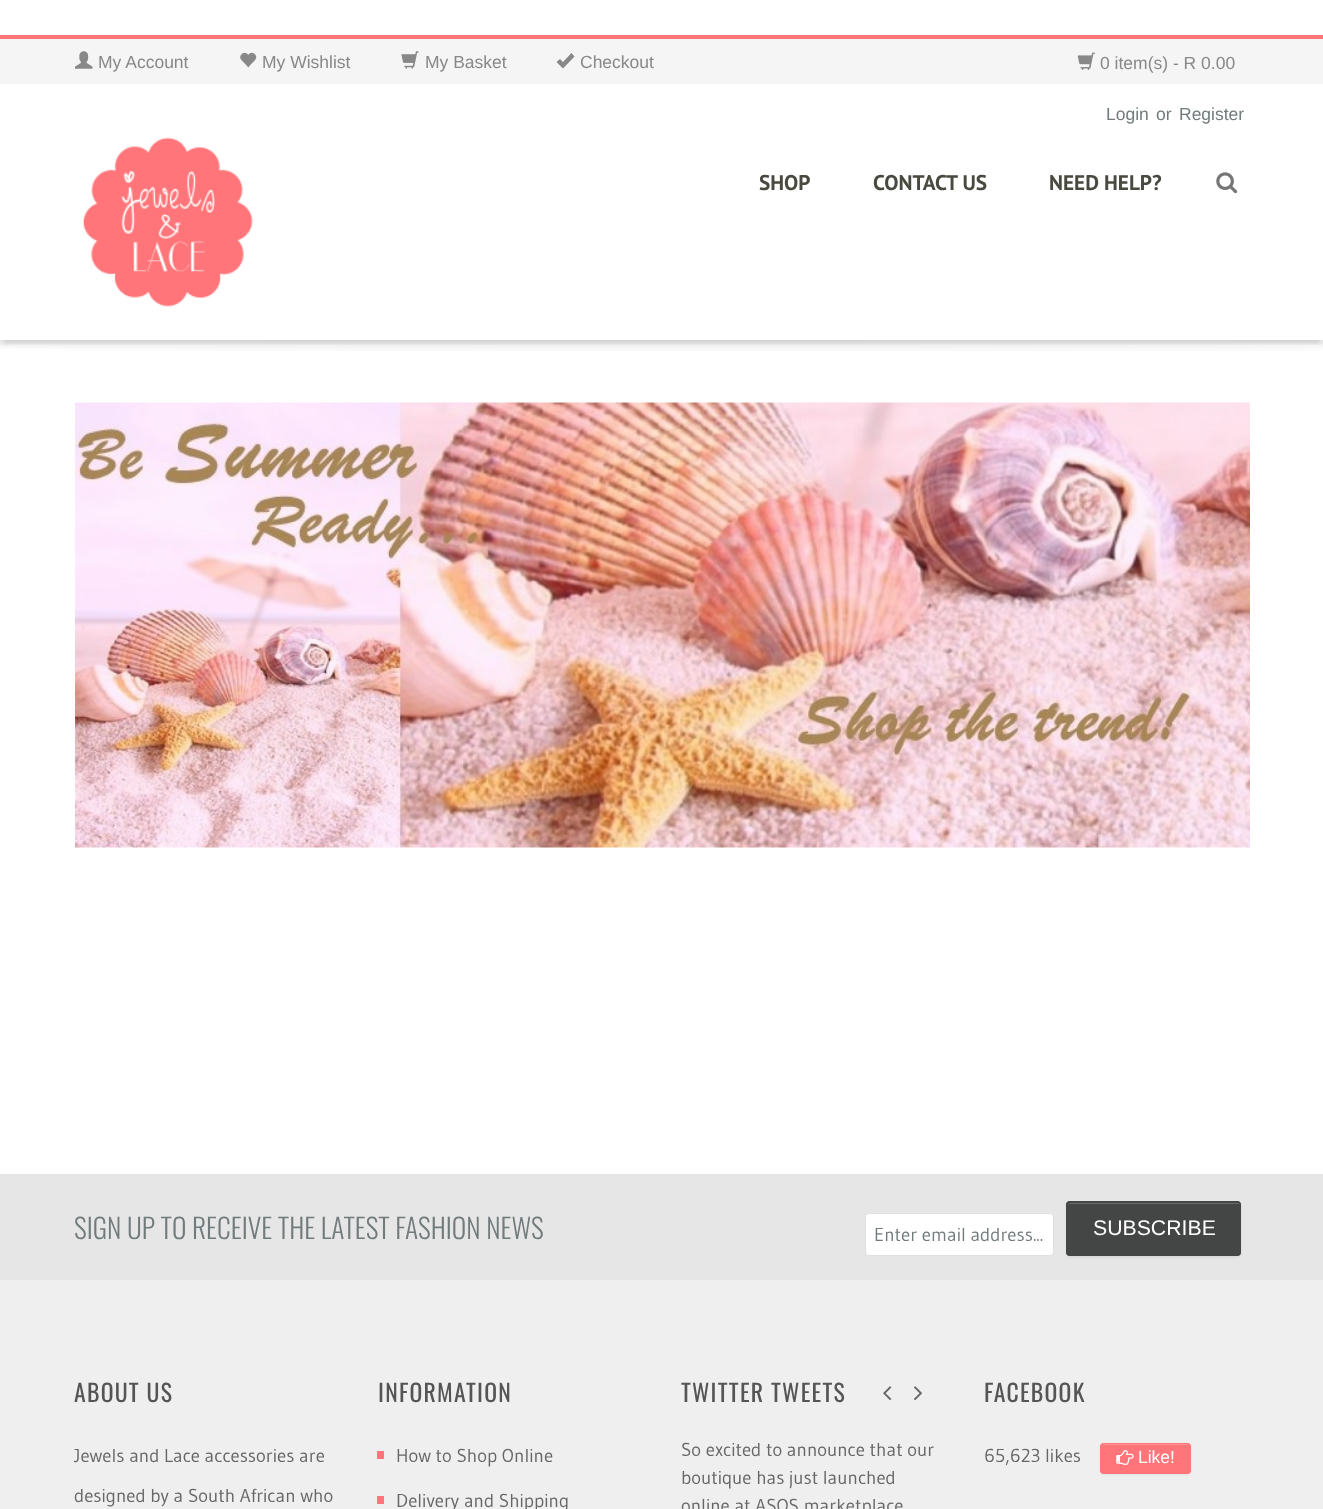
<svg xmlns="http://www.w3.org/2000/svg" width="1323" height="1509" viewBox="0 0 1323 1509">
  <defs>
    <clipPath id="clip1"><rect x="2" y="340" width="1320" height="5"/></clipPath>
    <filter id="blur1" x="-50%" y="-200%" width="200%" height="500%"><feGaussianBlur stdDeviation="2"/></filter>
    <filter id="blur2" x="-50%" y="-200%" width="200%" height="500%"><feGaussianBlur stdDeviation="1"/></filter>
  </defs>
  <rect width="100%" height="100%" fill="#ffffff"/>
  <g clip-path="url(#clip1)">
    <rect x="4" y="45" width="1316" height="298" fill="#000000" fill-opacity="0.1" filter="url(#blur1)"/>
  </g>
  <rect x="0" y="39" width="1323" height="45" fill="#f5f5f5"/>
  <rect x="0" y="35" width="1323" height="4" fill="#ff7579"/>
  <image x="75" y="51" width="18" height="18" href="img1.png"/>
  <text x="98" y="68" font-family="Liberation Sans" font-size="17.5" fill="#888888">My Account</text>
  <image x="240" y="52" width="17" height="16" href="img2.png"/>
  <text x="262" y="68" font-family="Liberation Sans" font-size="17.5" fill="#888888">My Wishlist</text>
  <image x="401" y="51" width="18" height="18" href="img3.png"/>
  <text x="425" y="68" font-family="Liberation Sans" font-size="17.5" fill="#888888">My Basket</text>
  <path d="M556.5 62L563 68.5L574.5 56.5L571.5 53L563 62L560 59Z" fill="#888888"/>
  <text x="580" y="68" font-family="Liberation Sans" font-size="17.5" fill="#888888">Checkout</text>
  <image x="1077" y="52" width="18" height="18" href="img4.png"/>
  <text x="1100" y="69" font-family="Liberation Sans" font-size="17.5" fill="#888888">0 item(s) - R 0.00</text>
  <text x="1106" y="120" font-family="Liberation Sans" font-size="17.5" fill="#727b7c">Login</text>
  <text x="1156" y="120" font-family="Liberation Sans" font-size="17.5" fill="#727b7c">or</text>
  <text x="1179" y="120" font-family="Liberation Sans" font-size="17.5" fill="#727b7c">Register</text>
  <image x="83" y="137" width="170" height="170" href="img5.png"/>
  <text x="759" y="190" font-family="PT Sans" font-size="21.25" font-weight="bold" fill="#494940">SHOP</text>
  <text x="873" y="190" font-family="PT Sans" font-size="21.25" font-weight="bold" fill="#494940">CONTACT US</text>
  <text x="1049" y="190" font-family="PT Sans" font-size="21.25" font-weight="bold" fill="#494940">NEED HELP?</text>
  <image x="1216" y="172" width="22" height="22" href="img6.png"/>
  <image x="0" y="340" width="1323" height="11" href="img7.png"/>
  <image x="75" y="402" width="1175" height="446" href="img8.png"/>
  <rect x="0" y="1280" width="1323" height="229" fill="#eeefee"/>
  <rect x="0" y="1174" width="1323" height="106" fill="#e5e6e5"/>
  <text x="74" y="1239" font-family="Oswald" font-size="27.5" font-weight="300" fill="#727b7c">SIGN UP TO RECEIVE THE LATEST FASHION NEWS</text>
  <rect x="865.5" y="1213.5" width="188" height="42" rx="3.5" fill="#ffffff" stroke="#e0e0e0"/>
  <text x="874" y="1241" font-family="Gudea" font-size="18.75" fill="#727b7c">Enter email address...</text>
  <rect x="1066" y="1203" width="175" height="55" rx="4" fill="#000000" fill-opacity="0.05" filter="url(#blur2)"/>
  <rect x="1066" y="1201" width="175" height="55" rx="4" fill="#444645"/>
  <path d="M1070 1204H1238C1239 1204 1240 1205 1240 1206C1240 1204 1239 1203 1238 1203H1070C1069 1203 1068 1204 1068 1206C1068 1205 1069 1204 1070 1204Z" fill="#696b6a"/>
  <rect x="1066.5" y="1201.5" width="174" height="54" rx="3.5" fill="none" stroke="#444645"/>
  <text x="1093" y="1235" font-family="Liberation Sans" font-size="21.25" fill="#ffffff">SUBSCRIBE</text>
  <text x="74" y="1402" font-family="Oswald" font-size="23.75" letter-spacing="1.25" fill="#555555">ABOUT US</text>
  <text x="74" y="1462" font-family="Gudea" font-size="18.75" fill="#666666">Jewels and Lace accessories are</text>
  <text x="74" y="1502" font-family="Gudea" font-size="18.75" fill="#666666">designed by a South African who</text>
  <text x="378" y="1402" font-family="Oswald" font-size="23.75" letter-spacing="1.25" fill="#555555">INFORMATION</text>
  <rect x="377" y="1451" width="7" height="8" fill="#ff7579"/>
  <text x="396" y="1462" font-family="Gudea" font-size="18.75" fill="#666666">How to Shop Online</text>
  <rect x="377" y="1496" width="7" height="8" fill="#ff7579"/>
  <text x="396" y="1507" font-family="Gudea" font-size="18.75" fill="#666666">Delivery and Shipping</text>
  <text x="681" y="1402" font-family="Oswald" font-size="23.75" letter-spacing="1.25" fill="#555555">TWITTER TWEETS</text>
  <image x="883" y="1386" width="9" height="15" href="img9.png"/>
  <image x="914" y="1386" width="8" height="15" href="img10.png"/>
  <text x="681" y="1456" font-family="Gudea" font-size="18.75" fill="#666666">So excited to announce that our</text>
  <text x="681" y="1484" font-family="Gudea" font-size="18.75" fill="#666666">boutique has just launched</text>
  <text x="681" y="1512" font-family="Gudea" font-size="18.75" fill="#666666">online at ASOS marketplace</text>
  <text x="984" y="1402" font-family="Oswald" font-size="23.75" letter-spacing="1.25" fill="#555555">FACEBOOK</text>
  <text x="984" y="1462" font-family="Gudea" font-size="18.75" fill="#666666">65,623 likes</text>
  <rect x="1100" y="1444" width="91" height="31" rx="4" fill="#000000" fill-opacity="0.05" filter="url(#blur2)"/>
  <rect x="1100" y="1443" width="91" height="31" rx="4" fill="#ff7579"/>
  <path d="M1104 1445H1188C1189 1445 1190 1446 1190 1448C1190 1440 1179 1444 1174 1444H1118C1112 1444 1101 1440 1101 1448C1101 1446 1102 1445 1104 1445Z" fill="#ff9194"/>
  <rect x="1100.5" y="1443.5" width="90" height="30" rx="3.5" fill="none" stroke="#ff7579"/>
  <image x="1116" y="1450" width="18" height="15" href="img11.png"/>
  <text x="1138" y="1463" font-family="Liberation Sans" font-size="17.5" fill="#ffffff">Like!</text>
</svg>
